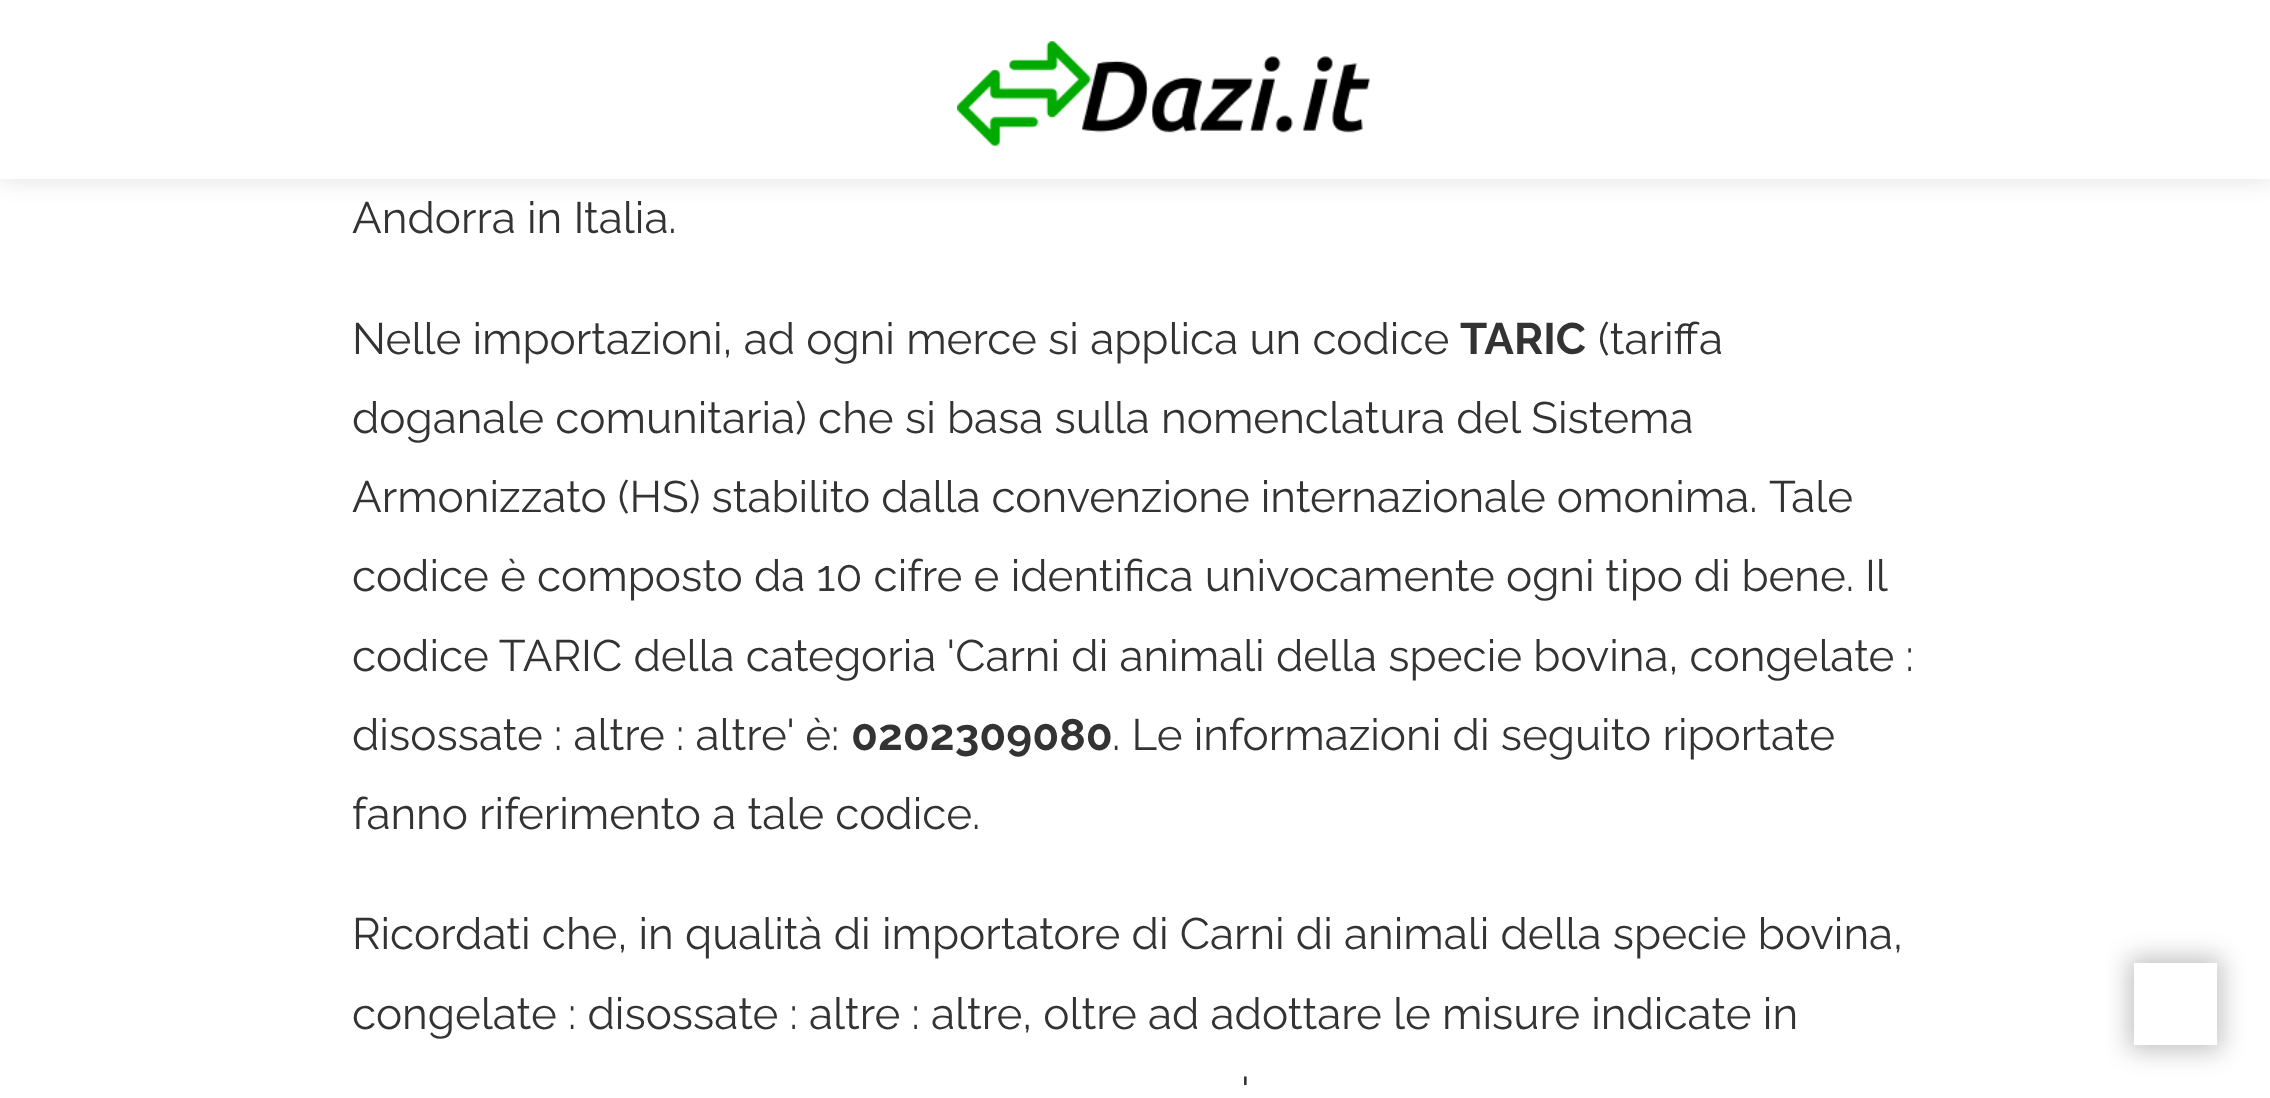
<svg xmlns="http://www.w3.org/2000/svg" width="2270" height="1098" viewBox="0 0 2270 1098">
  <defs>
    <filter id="blur1" x="-50%" y="-200%" width="200%" height="500%"><feGaussianBlur stdDeviation="11"/></filter>
    <filter id="blur2" x="-50%" y="-200%" width="200%" height="500%"><feGaussianBlur stdDeviation="12.5"/></filter>
  </defs>
  <rect width="100%" height="100%" fill="#ffffff"/>
  <rect x="0" y="3" width="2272" height="179" fill="#000000" fill-opacity="0.1" filter="url(#blur1)"/>
  <rect x="0" y="0" width="2270" height="179" fill="#ffffff"/>
  <image x="957" y="41" width="413" height="105" href="img1.png"/>
  <text x="352" y="233" font-family="Raleway" font-size="44" fill="#333333">Andorra in Italia.</text>
  <text x="352" y="354" font-family="Raleway" font-size="44" fill="#333333">Nelle importazioni, ad ogni merce si applica un codice</text>
  <text x="1460" y="354" font-family="Raleway" font-size="44" font-weight="bold" fill="#333333">TARIC</text>
  <text x="1598" y="354" font-family="Raleway" font-size="44" fill="#333333">(tariffa</text>
  <text x="352" y="433" font-family="Raleway" font-size="44" fill="#333333">doganale comunitaria) che si basa sulla nomenclatura del Sistema</text>
  <text x="352" y="512" word-spacing="-0.25" font-family="Raleway" font-size="44" fill="#333333">Armonizzato (HS) stabilito dalla convenzione internazionale omonima.</text>
  <text x="1769" y="512" font-family="Raleway" font-size="44" fill="#333333">Tale</text>
  <text x="352" y="591" font-family="Raleway" font-size="44" fill="#333333">codice è composto da 10 cifre e identifica univocamente</text>
  <text x="1506" y="591" word-spacing="-0.5" font-family="Raleway" font-size="44" fill="#333333">ogni tipo di bene. Il</text>
  <text x="352" y="671" font-family="Raleway" font-size="44" fill="#333333">codice TARIC della categoria 'Carni di animali della specie bovina, congelate :</text>
  <text x="352" y="750" font-family="Raleway" font-size="44" fill="#333333">disossate : altre : altre' è:</text>
  <text x="851" y="750" font-family="Raleway" font-size="44" font-weight="bold" fill="#333333">0202309080</text>
  <text x="1112" y="750" font-family="Raleway" font-size="44" fill="#333333">. Le informazioni di seguito riportate</text>
  <text x="352" y="829" font-family="Raleway" font-size="44" fill="#333333">fanno riferimento a tale codice.</text>
  <text x="352" y="949" font-family="Raleway" font-size="44" fill="#333333">Ricordati che, in qualità di importatore di Carni di animali della specie bovina,</text>
  <text x="352" y="1029" font-family="Raleway" font-size="44" fill="#333333">congelate : disossate : altre : altre, oltre ad adottare le misure indicate in</text>
  <text x="1241" y="1108" font-family="Raleway" font-size="44" fill="#333333">'</text>
  <rect x="2129" y="957" width="93" height="94" fill="#000000" fill-opacity="0.24" filter="url(#blur2)"/>
  <rect x="2134" y="963" width="83" height="82" fill="#ffffff"/>
</svg>
